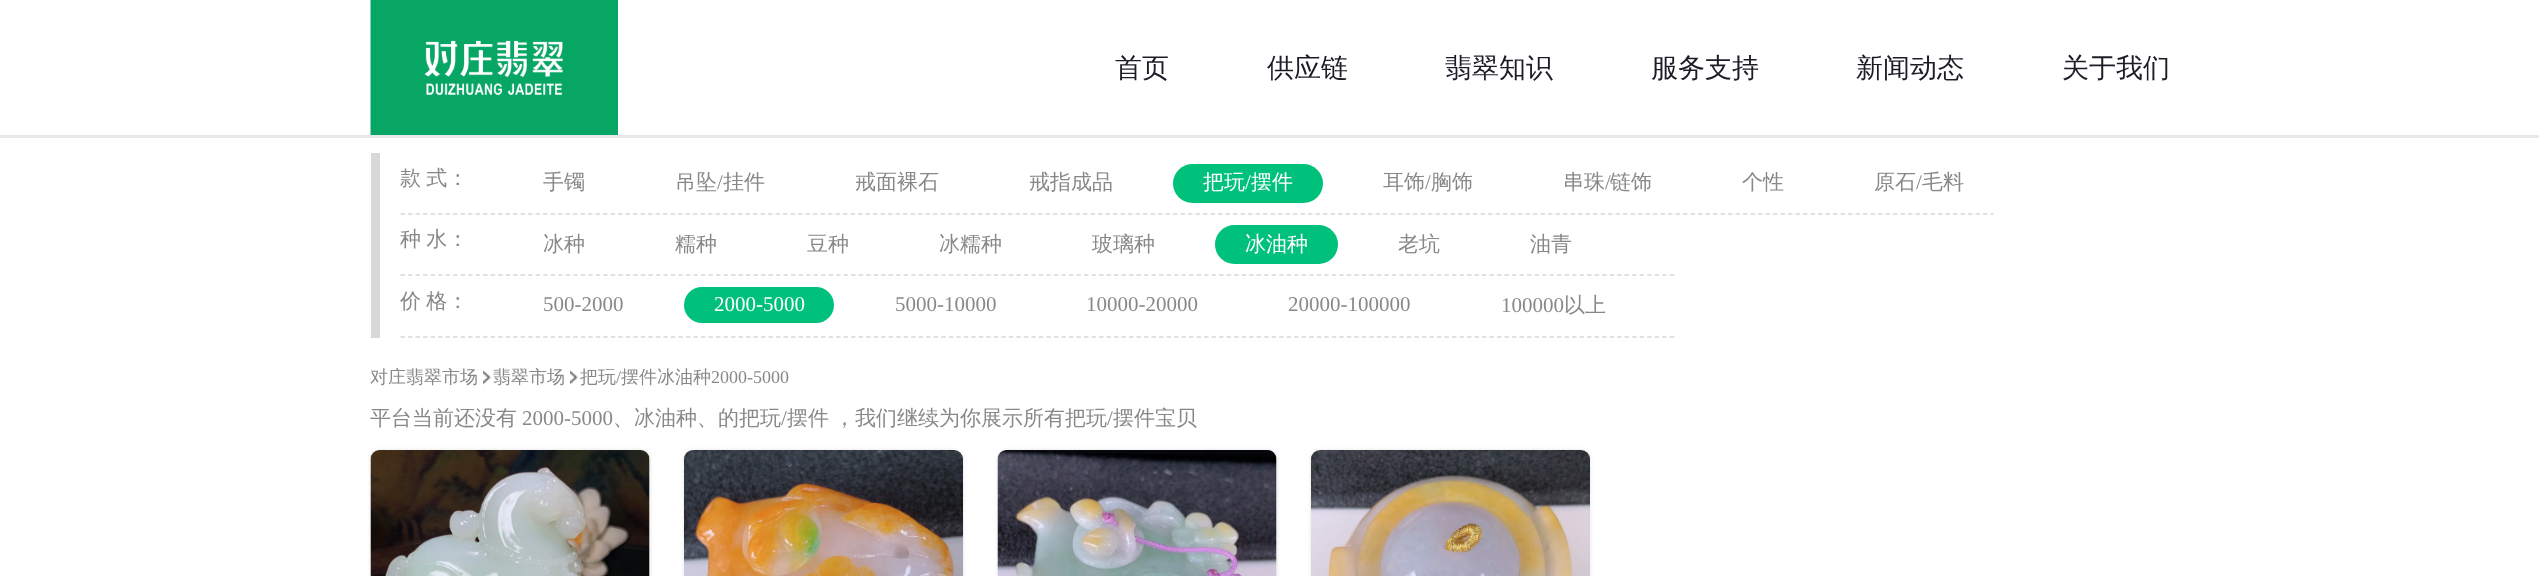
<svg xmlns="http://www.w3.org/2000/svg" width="2539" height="576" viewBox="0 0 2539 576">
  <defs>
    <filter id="blur1" x="-50%" y="-200%" width="200%" height="500%"><feGaussianBlur stdDeviation="2"/></filter>
  </defs>
  <rect width="100%" height="100%" fill="#ffffff"/>
  <rect x="0" y="135" width="2539" height="3" fill="#e8e9eb"/>
  <image x="370" y="0" width="248" height="135" href="img1.png"/>
  <text x="1115" y="77" font-family="WenQuanYi Zen Hei" font-size="27" font-weight="500" fill="#1c1b26">首页</text>
  <text x="1267" y="77" font-family="WenQuanYi Zen Hei" font-size="27" font-weight="500" fill="#1c1b26">供应链</text>
  <text x="1445" y="77" font-family="WenQuanYi Zen Hei" font-size="27" font-weight="500" fill="#1c1b26">翡翠知识</text>
  <text x="1651" y="77" font-family="WenQuanYi Zen Hei" font-size="27" font-weight="500" fill="#1c1b26">服务支持</text>
  <text x="1856" y="77" font-family="WenQuanYi Zen Hei" font-size="27" font-weight="500" fill="#1c1b26">新闻动态</text>
  <text x="2062" y="77" font-family="WenQuanYi Zen Hei" font-size="27" font-weight="500" fill="#1c1b26">关于我们</text>
  <rect x="371" y="153" width="9" height="185" fill="#d8d8d8"/>
  <path d="M400.5 214H1993.5" fill="none" stroke="#d8d8d8" stroke-width="1.5" stroke-dasharray="4.5 3"/>
  <text x="400" y="185" word-spacing="-1" font-family="WenQuanYi Zen Hei" font-size="21" font-weight="500" fill="#888888">款 式：</text>
  <text x="543" y="189" font-family="WenQuanYi Zen Hei" font-size="21" font-weight="500" fill="#888888">手镯</text>
  <text x="675" y="189" font-family="WenQuanYi Zen Hei" font-size="21" font-weight="500" fill="#888888">吊坠</text>
  <text x="717" y="189" font-family="Liberation Serif" font-size="21" fill="#888888">/</text>
  <text x="723" y="189" font-family="WenQuanYi Zen Hei" font-size="21" font-weight="500" fill="#888888">挂件</text>
  <text x="855" y="189" font-family="WenQuanYi Zen Hei" font-size="21" font-weight="500" fill="#888888">戒面裸石</text>
  <text x="1029" y="189" font-family="WenQuanYi Zen Hei" font-size="21" font-weight="500" fill="#888888">戒指成品</text>
  <rect x="1173" y="164" width="150" height="39" rx="19.5" fill="#00c17b"/>
  <text x="1203" y="189" font-family="WenQuanYi Zen Hei" font-size="21" font-weight="500" fill="#ffffff">把玩</text>
  <text x="1245" y="189" font-family="Liberation Serif" font-size="21" fill="#ffffff">/</text>
  <text x="1251" y="189" font-family="WenQuanYi Zen Hei" font-size="21" font-weight="500" fill="#ffffff">摆件</text>
  <text x="1383" y="189" font-family="WenQuanYi Zen Hei" font-size="21" font-weight="500" fill="#888888">耳饰</text>
  <text x="1425" y="189" font-family="Liberation Serif" font-size="21" fill="#888888">/</text>
  <text x="1431" y="189" font-family="WenQuanYi Zen Hei" font-size="21" font-weight="500" fill="#888888">胸饰</text>
  <text x="1563" y="189" font-family="WenQuanYi Zen Hei" font-size="21" font-weight="500" fill="#888888">串珠</text>
  <text x="1605" y="189" font-family="Liberation Serif" font-size="21" fill="#888888">/</text>
  <text x="1610" y="189" font-family="WenQuanYi Zen Hei" font-size="21" font-weight="500" fill="#888888">链饰</text>
  <text x="1742" y="189" font-family="WenQuanYi Zen Hei" font-size="21" font-weight="500" fill="#888888">个性</text>
  <text x="1874" y="189" font-family="WenQuanYi Zen Hei" font-size="21" font-weight="500" fill="#888888">原石</text>
  <text x="1916" y="189" font-family="Liberation Serif" font-size="21" fill="#888888">/</text>
  <text x="1922" y="189" font-family="WenQuanYi Zen Hei" font-size="21" font-weight="500" fill="#888888">毛料</text>
  <path d="M400.5 275H1675.5" fill="none" stroke="#d8d8d8" stroke-width="1.5" stroke-dasharray="4.5 3.01"/>
  <text x="400" y="246" word-spacing="-1" font-family="WenQuanYi Zen Hei" font-size="21" font-weight="500" fill="#888888">种 水：</text>
  <text x="543" y="251" font-family="WenQuanYi Zen Hei" font-size="21" font-weight="500" fill="#888888">冰种</text>
  <text x="675" y="251" font-family="WenQuanYi Zen Hei" font-size="21" font-weight="500" fill="#888888">糯种</text>
  <text x="807" y="251" font-family="WenQuanYi Zen Hei" font-size="21" font-weight="500" fill="#888888">豆种</text>
  <text x="939" y="251" font-family="WenQuanYi Zen Hei" font-size="21" font-weight="500" fill="#888888">冰糯种</text>
  <text x="1092" y="251" font-family="WenQuanYi Zen Hei" font-size="21" font-weight="500" fill="#888888">玻璃种</text>
  <rect x="1215" y="225" width="123" height="39" rx="19.5" fill="#00c17b"/>
  <text x="1245" y="251" font-family="WenQuanYi Zen Hei" font-size="21" font-weight="500" fill="#ffffff">冰油种</text>
  <text x="1398" y="251" font-family="WenQuanYi Zen Hei" font-size="21" font-weight="500" fill="#888888">老坑</text>
  <text x="1530" y="251" font-family="WenQuanYi Zen Hei" font-size="21" font-weight="500" fill="#888888">油青</text>
  <path d="M400.5 337H1675.5" fill="none" stroke="#d8d8d8" stroke-width="1.5" stroke-dasharray="4.5 3.01"/>
  <text x="400" y="308" word-spacing="-1" font-family="WenQuanYi Zen Hei" font-size="21" font-weight="500" fill="#888888">价 格：</text>
  <text x="543" y="311" font-family="Liberation Serif" font-size="21" fill="#888888">500-2000</text>
  <rect x="684" y="287" width="150" height="36" rx="18" fill="#00c17b"/>
  <text x="714" y="311" font-family="Liberation Serif" font-size="21" fill="#ffffff">2000-5000</text>
  <text x="895" y="311" font-family="Liberation Serif" font-size="21" fill="#888888">5000-10000</text>
  <text x="1086" y="311" font-family="Liberation Serif" font-size="21" fill="#888888">10000-20000</text>
  <text x="1288" y="311" font-family="Liberation Serif" font-size="21" fill="#888888">20000-100000</text>
  <text x="1501" y="312" font-family="Liberation Serif" font-size="21" fill="#888888">100000</text>
  <text x="1564" y="312" font-family="WenQuanYi Zen Hei" font-size="21" font-weight="500" fill="#888888">以上</text>
  <image x="483" y="370" width="8" height="15" href="img2.png"/>
  <text x="370" y="383" font-family="WenQuanYi Zen Hei" font-size="18" font-weight="500" fill="#888888">对庄翡翠市场</text>
  <image x="570" y="370" width="8" height="15" href="img3.png"/>
  <text x="493" y="383" font-family="WenQuanYi Zen Hei" font-size="18" font-weight="500" fill="#888888">翡翠市场</text>
  <text x="580" y="383" font-family="WenQuanYi Zen Hei" font-size="18" font-weight="500" fill="#888888">把玩</text>
  <text x="616" y="383" font-family="Liberation Serif" font-size="18" fill="#888888">/</text>
  <text x="621" y="383" font-family="WenQuanYi Zen Hei" font-size="18" font-weight="500" fill="#888888">摆件冰油种</text>
  <text x="711" y="383" font-family="Liberation Serif" font-size="18" fill="#888888">2000-5000</text>
  <text x="370" y="425" font-family="WenQuanYi Zen Hei" font-size="21" font-weight="500" fill="#888888">平台当前还没有</text>
  <text x="522" y="425" font-family="Liberation Serif" font-size="21" fill="#888888">2000-5000</text>
  <text x="613" y="425" font-family="WenQuanYi Zen Hei" font-size="21" font-weight="500" fill="#888888">、冰油种、的把玩</text>
  <text x="781" y="425" font-family="Liberation Serif" font-size="21" fill="#888888">/</text>
  <text x="787" y="425" font-family="WenQuanYi Zen Hei" font-size="21" font-weight="500" fill="#888888">摆件</text>
  <text x="834" y="425" font-family="WenQuanYi Zen Hei" font-size="21" font-weight="500" fill="#888888">，我们继续为你展示所有把玩</text>
  <text x="1107" y="425" font-family="Liberation Serif" font-size="21" fill="#888888">/</text>
  <text x="1113" y="425" font-family="WenQuanYi Zen Hei" font-size="21" font-weight="500" fill="#888888">摆件宝贝</text>
  <rect x="371" y="450" width="279" height="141" rx="9" fill="#000000" fill-opacity="0.1" filter="url(#blur1)"/>
  <image x="370" y="450" width="280" height="126" href="img4.png"/>
  <rect x="684" y="450" width="279" height="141" rx="9" fill="#000000" fill-opacity="0.1" filter="url(#blur1)"/>
  <image x="684" y="450" width="279" height="126" href="img5.png"/>
  <rect x="998" y="450" width="279" height="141" rx="9" fill="#000000" fill-opacity="0.1" filter="url(#blur1)"/>
  <image x="997" y="450" width="280" height="126" href="img6.png"/>
  <rect x="1311" y="450" width="279" height="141" rx="9" fill="#000000" fill-opacity="0.1" filter="url(#blur1)"/>
  <image x="1311" y="450" width="279" height="126" href="img7.png"/>
</svg>
